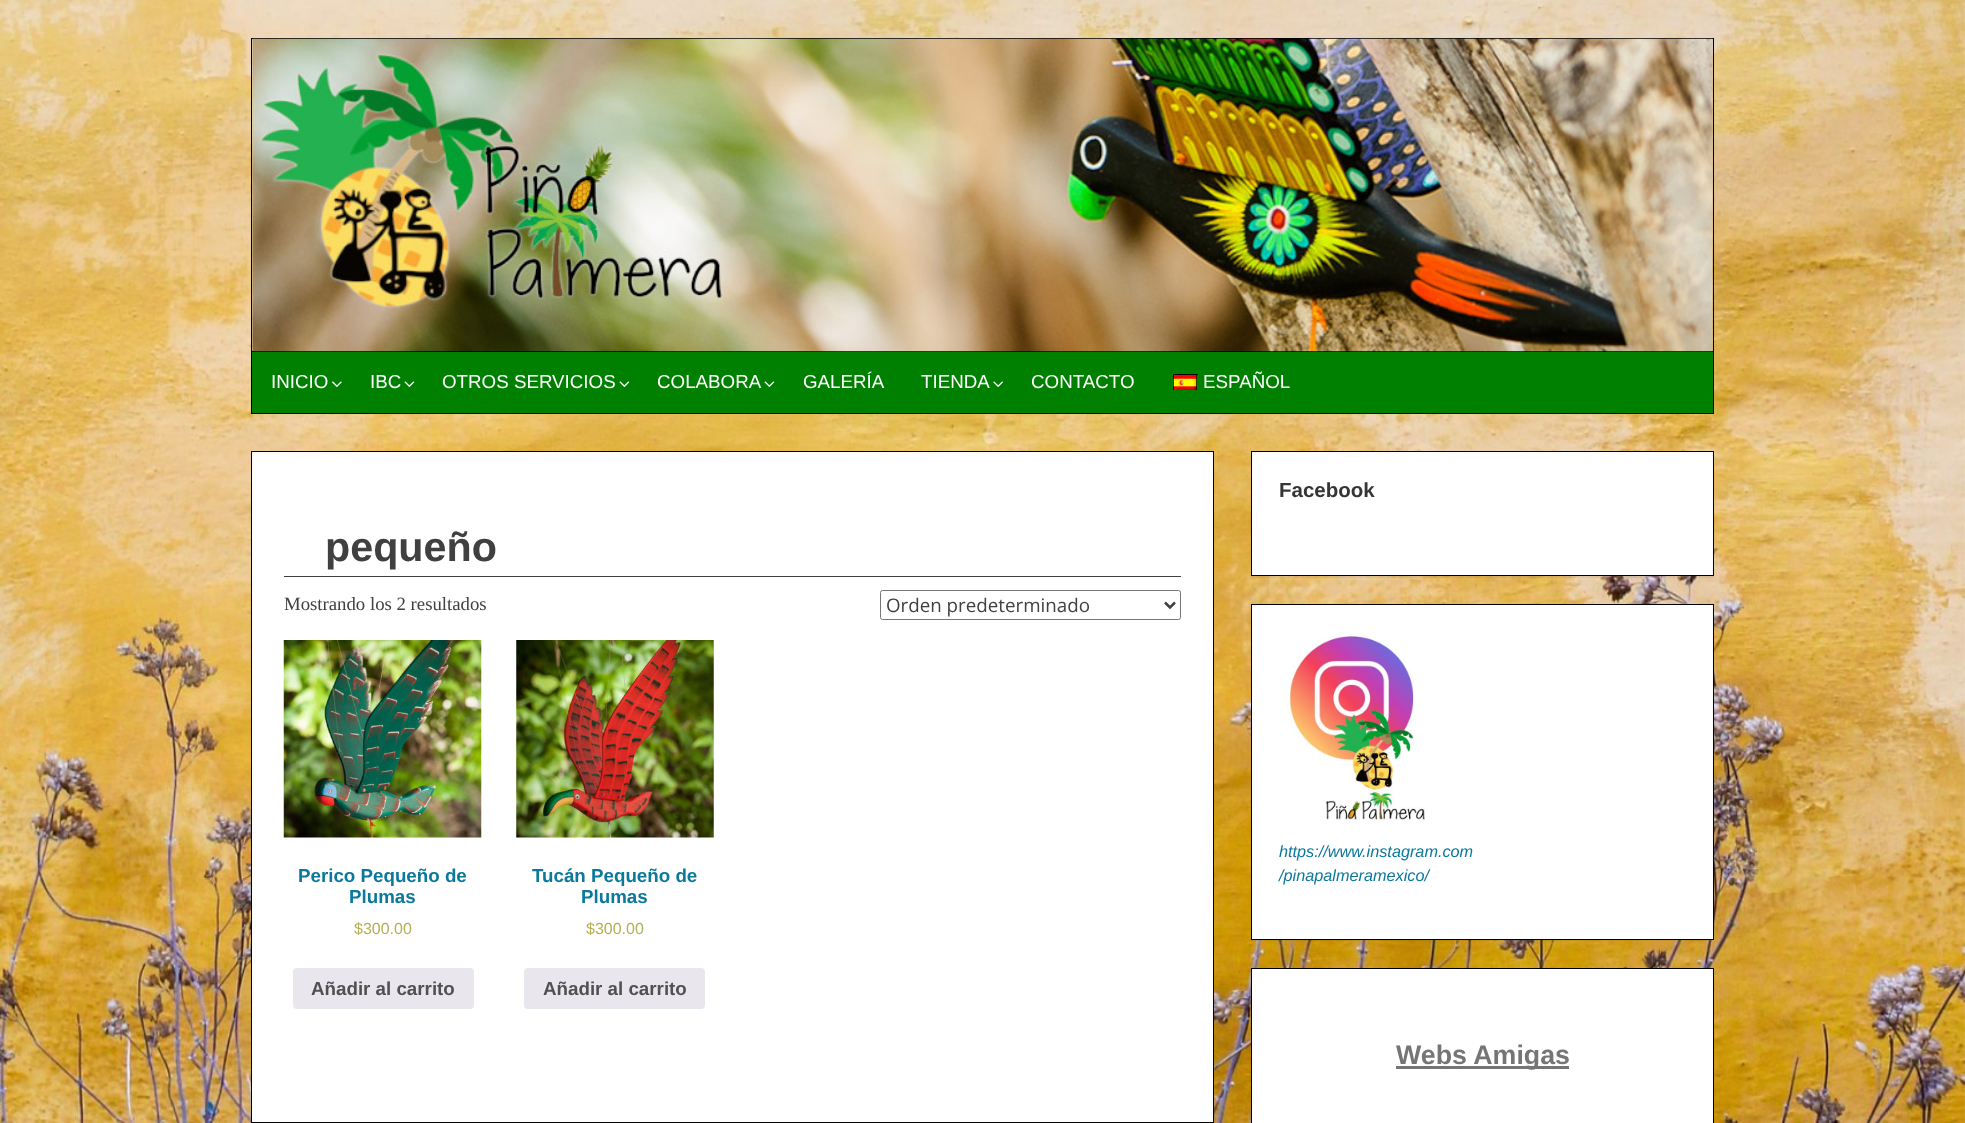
<svg xmlns="http://www.w3.org/2000/svg" width="1965" height="1123" viewBox="0 0 1965 1123">
  <defs>
    <filter id="blur1" x="-50%" y="-200%" width="200%" height="500%"><feGaussianBlur stdDeviation="0.5"/></filter>
  </defs>
  <rect width="100%" height="100%" fill="#ffffff"/>
  <image x="0" y="0" width="1965" height="1123" href="img1.png"/>
  <rect x="251" y="38" width="1463" height="1" fill="#000000"/>
  <rect x="251" y="38" width="1" height="313" fill="#000000"/>
  <rect x="251.5" y="351.5" width="1462" height="62" fill="#008000" stroke="#000000"/>
  <image x="252" y="38" width="1461" height="314" href="img2.png"/>
  <rect x="1713" y="38" width="1" height="313" fill="#000000"/>
  <text x="271" y="388" font-family="Liberation Sans" font-size="18.75" fill="#ffffff">INICIO</text>
  <image x="332" y="381" width="10" height="6" href="img3.png"/>
  <text x="370" y="388" font-family="Liberation Sans" font-size="18.75" fill="#ffffff">IBC</text>
  <image x="404" y="381" width="11" height="6" href="img4.png"/>
  <text x="442" y="388" font-family="Liberation Sans" font-size="18.75" fill="#ffffff">OTROS SERVICIOS</text>
  <image x="619" y="381" width="11" height="6" href="img4.png"/>
  <text x="657" y="388" font-family="Liberation Sans" font-size="18.75" fill="#ffffff">COLABORA</text>
  <image x="764" y="381" width="11" height="6" href="img4.png"/>
  <text x="803" y="388" font-family="Liberation Sans" font-size="18.75" fill="#ffffff">GALERÍA</text>
  <text x="921" y="388" font-family="Liberation Sans" font-size="18.75" fill="#ffffff">TIENDA</text>
  <image x="993" y="381" width="10" height="6" href="img5.png"/>
  <text x="1031" y="388" font-family="Liberation Sans" font-size="18.75" fill="#ffffff">CONTACTO</text>
  <rect x="1173" y="374" width="25" height="1" fill="#000000"/>
  <rect x="1196" y="374" width="1" height="16" fill="#000000"/>
  <rect x="1173" y="374" width="1" height="16" fill="#000000"/>
  <image x="1173" y="375" width="24" height="15" href="img6.png"/>
  <text x="1203" y="388" font-family="Liberation Sans" font-size="18.75" fill="#ffffff">ESPAÑOL</text>
  <rect x="251.5" y="451.5" width="962" height="671" fill="#ffffff" stroke="#000000"/>
  <rect x="284" y="576" width="897" height="1" fill="#404040"/>
  <text x="325" y="561" font-family="Liberation Sans" font-size="41.25" font-weight="bold" fill="#404040">pequeño</text>
  <text x="284" y="610" font-family="Liberation Serif" font-size="18.75" fill="#404040">Mostrando los 2 resultados</text>
  <rect x="880.5" y="590.5" width="300" height="29" rx="2" fill="none" stroke="#767676"/>
  <path d="M1165 602.5L1170 607.5L1175 602.5" fill="none" stroke="#404040" stroke-width="2.5"/>
  <text x="886" y="612" font-family="Open Sans" font-size="18.75" fill="#404040">Orden predeterminado</text>
  <image x="283" y="640" width="199" height="198" href="img7.png"/>
  <text x="298" y="882" font-family="Liberation Sans" font-size="18.75" font-weight="bold" fill="#0b789c">Perico Pequeño de</text>
  <text x="349" y="903" font-family="Liberation Sans" font-size="18.75" font-weight="bold" fill="#0b789c">Plumas</text>
  <text x="354" y="934" font-family="Liberation Sans" font-size="16" fill="#b3af54">$300.00</text>
  <rect x="293" y="968" width="181" height="41" rx="4" fill="#e9e6ed"/>
  <text x="311" y="995" font-family="Liberation Sans" font-size="18.75" font-weight="bold" fill="#515151">Añadir al carrito</text>
  <image x="516" y="640" width="198" height="198" href="img8.png"/>
  <text x="532" y="882" font-family="Liberation Sans" font-size="18.75" font-weight="bold" fill="#0b789c">Tucán Pequeño de</text>
  <text x="581" y="903" font-family="Liberation Sans" font-size="18.75" font-weight="bold" fill="#0b789c">Plumas</text>
  <text x="586" y="934" font-family="Liberation Sans" font-size="16" fill="#b3af54">$300.00</text>
  <rect x="524" y="968" width="181" height="41" rx="4" fill="#e9e6ed"/>
  <text x="543" y="995" font-family="Liberation Sans" font-size="18.75" font-weight="bold" fill="#515151">Añadir al carrito</text>
  <rect x="1251" y="453" width="463" height="125" fill="#000000" fill-opacity="0.06" filter="url(#blur1)"/>
  <rect x="1251.5" y="451.5" width="462" height="124" fill="#ffffff" stroke="#000000"/>
  <text x="1279" y="497" font-family="Liberation Sans" font-size="20.5" font-weight="bold" fill="#353535">Facebook</text>
  <rect x="1251" y="605" width="463" height="336" fill="#000000" fill-opacity="0.06" filter="url(#blur1)"/>
  <rect x="1251.5" y="604.5" width="462" height="335" fill="#ffffff" stroke="#000000"/>
  <image x="1285" y="631" width="140" height="192" href="img9.png"/>
  <text x="1279" y="857" font-family="Liberation Sans" font-size="16.25" font-style="italic" fill="#0b789c">https://www.instagram.com</text>
  <text x="1279" y="881" font-family="Liberation Sans" font-size="16.25" font-style="italic" fill="#0b789c">/pinapalmeramexico/</text>
  <rect x="1251.5" y="968.5" width="462" height="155" fill="#ffffff" stroke="#000000"/>
  <rect x="1396" y="1066" width="173" height="3" fill="#757575"/>
  <text x="1396" y="1064" font-family="Liberation Sans" font-size="26.75" font-weight="bold" fill="#757575">Webs Amigas</text>
</svg>
